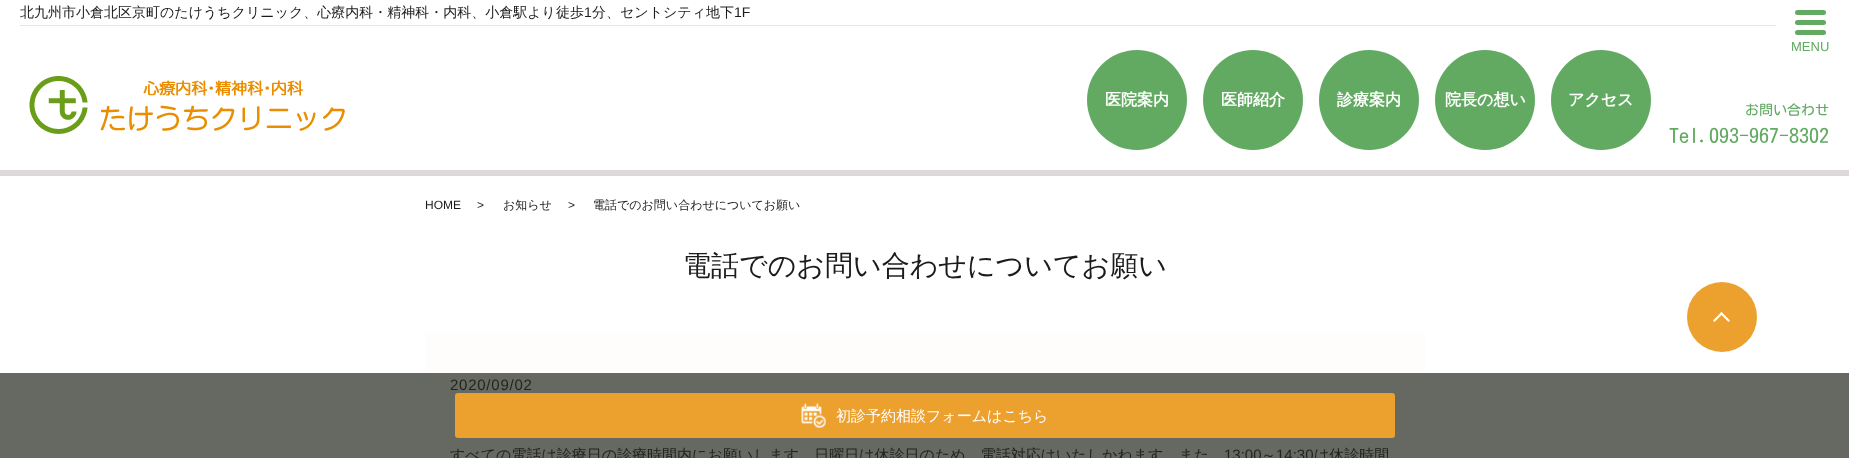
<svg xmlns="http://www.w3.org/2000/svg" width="1849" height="458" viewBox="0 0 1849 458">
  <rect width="100%" height="100%" fill="#ffffff"/>
  <rect x="0" y="373" width="1849" height="85" fill="#656962"/>
  <rect x="0" y="170" width="1849" height="6" fill="#ded9d9"/>
  <rect x="20" y="25" width="1756" height="1" fill="#e6e6e6"/>
  <text x="20" y="17" font-family="WenQuanYi Zen Hei" font-size="14" font-weight="500" fill="#1b1b1b">北九州市小倉北区京町のたけうちクリニック、心療内科・精神科・内科、小倉駅より徒歩</text>
  <text x="584" y="17" font-family="Liberation Sans" font-size="14" fill="#1b1b1b">1</text>
  <text x="592" y="17" font-family="WenQuanYi Zen Hei" font-size="14" font-weight="500" fill="#1b1b1b">分、セントシティ地下</text>
  <text x="734" y="17" font-family="Liberation Sans" font-size="14" fill="#1b1b1b">1F</text>
  <image x="29" y="76" width="316" height="58" href="img1.png"/>
  <circle cx="1137" cy="100" r="50" fill="#62aa62"/>
  <text x="1105" y="105" font-family="WenQuanYi Zen Hei" font-size="16" font-weight="bold" fill="#ffffff">医院案内</text>
  <circle cx="1253" cy="100" r="50" fill="#62aa62"/>
  <text x="1221" y="105" font-family="WenQuanYi Zen Hei" font-size="16" font-weight="bold" fill="#ffffff">医師紹介</text>
  <circle cx="1369" cy="100" r="50" fill="#62aa62"/>
  <text x="1337" y="105" font-family="WenQuanYi Zen Hei" font-size="16" font-weight="bold" fill="#ffffff">診療案内</text>
  <circle cx="1485" cy="100" r="50" fill="#62aa62"/>
  <text x="1445" y="105" font-family="WenQuanYi Zen Hei" font-size="16" font-weight="bold" fill="#ffffff">院長の想い</text>
  <circle cx="1601" cy="100" r="50" fill="#62aa62"/>
  <text x="1568" y="105" font-family="WenQuanYi Zen Hei" font-size="16" font-weight="bold" fill="#ffffff">アクセス</text>
  <rect x="1795" y="10" width="31" height="5" rx="2.5" fill="#62aa62"/>
  <rect x="1795" y="20" width="31" height="5" rx="2.5" fill="#62aa62"/>
  <rect x="1795" y="30" width="31" height="5" rx="2.5" fill="#62aa62"/>
  <text x="1791" y="51" font-family="Liberation Sans" font-size="13" fill="#62aa62">MENU</text>
  <text x="1745" y="115" font-family="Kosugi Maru" font-size="14" fill="#62aa62">お問い合わせ</text>
  <text x="1669" y="143" font-family="Kosugi Maru" font-size="20" fill="#62aa62">Tel.093-967-8302</text>
  <text x="425" y="209" font-family="Liberation Sans" font-size="12" fill="#1b1b1b">HOME</text>
  <text x="477" y="209" font-family="Liberation Sans" font-size="12" fill="#1b1b1b">&gt;</text>
  <text x="503" y="209" font-family="WenQuanYi Zen Hei" font-size="12" font-weight="500" fill="#1b1b1b">お知らせ</text>
  <text x="568" y="209" font-family="Liberation Sans" font-size="12" fill="#1b1b1b">&gt;</text>
  <text x="593" y="209" font-family="WenQuanYi Zen Hei" font-size="12" font-weight="500" fill="#1b1b1b">電話でのお問い合わせについてお願い</text>
  <text x="683" y="275" font-family="WenQuanYi Zen Hei" font-size="28" font-weight="500" fill="#1b1b1b">電話でのお問い合わせについてお願い</text>
  <rect x="425" y="331" width="1000" height="42" fill="#fffdfc"/>
  <text x="450" y="390" font-family="Liberation Sans" font-size="15" letter-spacing="0.75" fill="#21241d">2020/09/02</text>
  <text x="450" y="460" font-family="WenQuanYi Zen Hei" font-size="15" font-weight="500" fill="#21241d">すべての電話は診療日の診療時間内にお願いします。日曜日は休診日のため、電話対応はいたしかねます。また</text>
  <text x="1224" y="460" font-family="Liberation Sans" font-size="15" fill="#21241d">13:00</text>
  <text x="1261" y="460" font-family="WenQuanYi Zen Hei" font-size="15" font-weight="500" fill="#21241d">～</text>
  <text x="1276" y="460" font-family="Liberation Sans" font-size="15" fill="#21241d">14:30</text>
  <text x="1314" y="460" font-family="WenQuanYi Zen Hei" font-size="15" font-weight="500" fill="#21241d">は休診時間</text>
  <circle cx="1722" cy="317" r="35" fill="#eca12f"/>
  <path d="M1721.5 312L1730 320.5L1728.5 322L1720 313.5Z" fill="#ffffff"/>
  <path d="M1721.5 312L1723 313.5L1714.5 322L1713 320.5Z" fill="#ffffff"/>
  <rect x="455" y="393" width="940" height="45" rx="3" fill="#eca12f"/>
  <image x="801" y="403" width="25" height="25" href="img2.png"/>
  <text x="836" y="421" font-family="WenQuanYi Zen Hei" font-size="15" font-weight="500" fill="#ffffff">初診予約相談フォームはこちら</text>
</svg>
